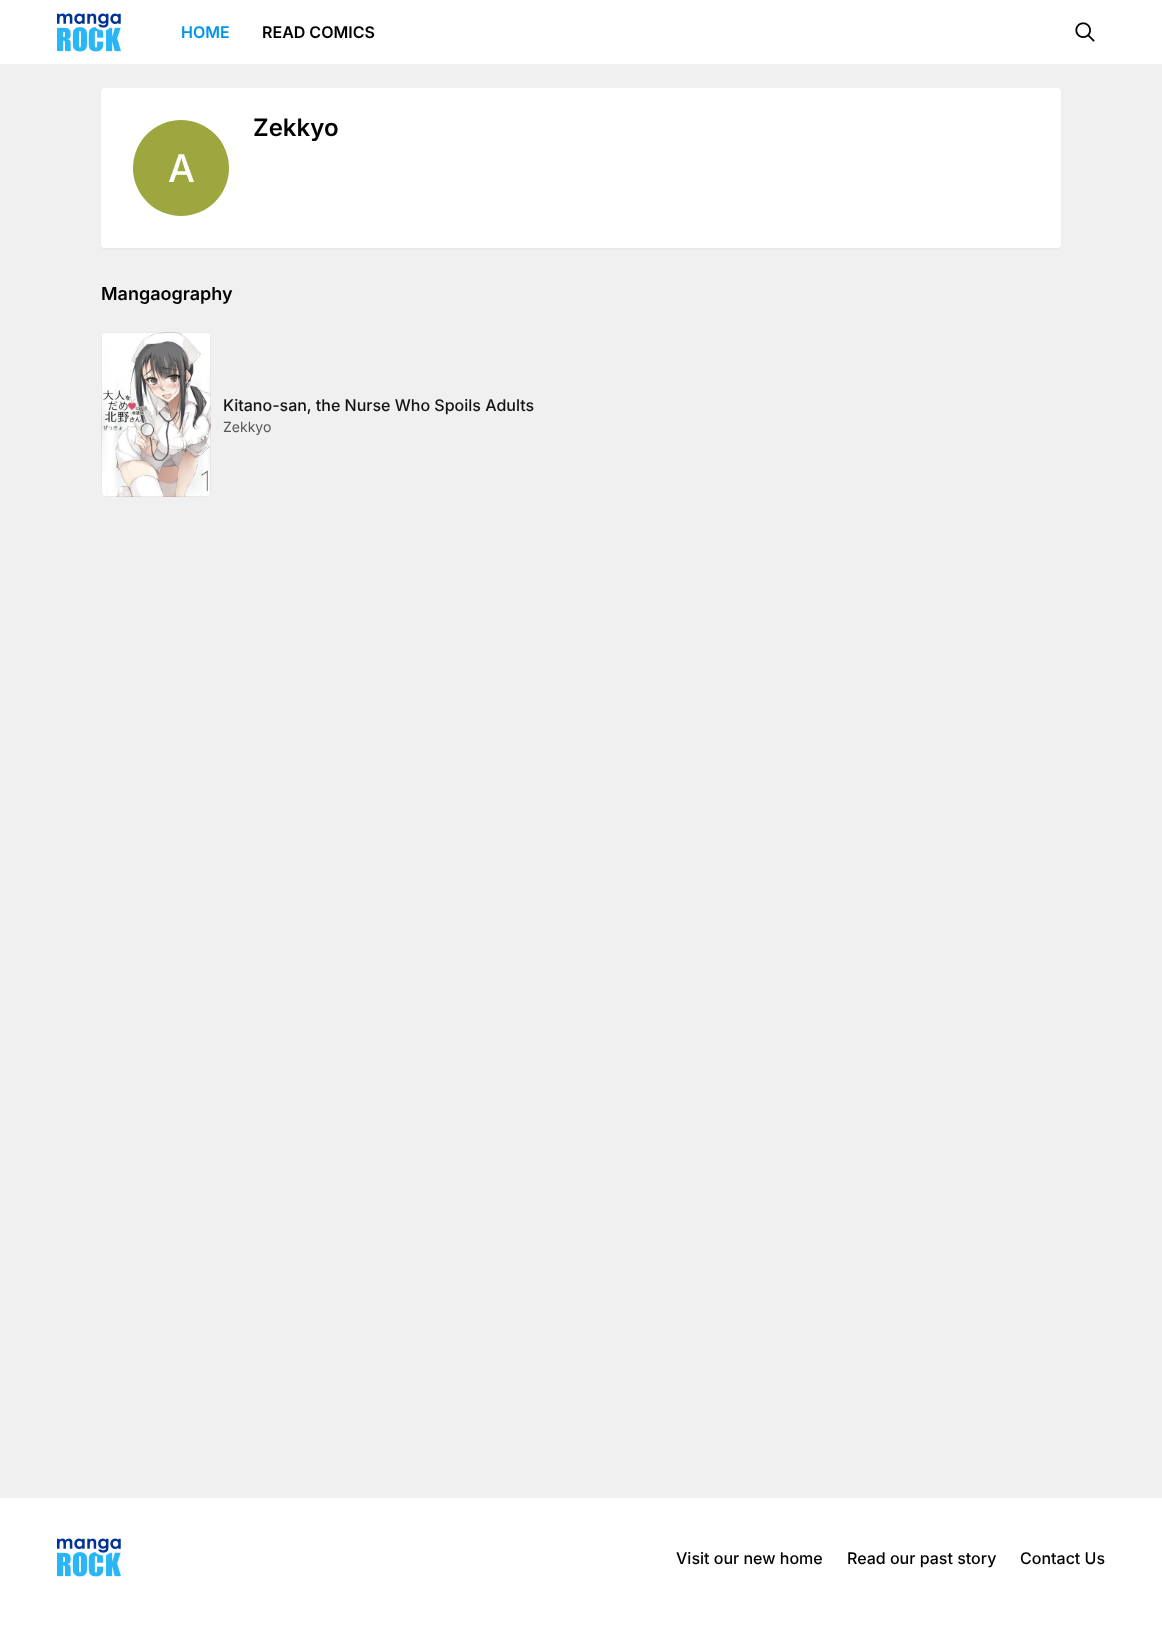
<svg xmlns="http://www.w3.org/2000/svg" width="1162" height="1637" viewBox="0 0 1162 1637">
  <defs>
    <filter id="blur1" x="-50%" y="-200%" width="200%" height="500%"><feGaussianBlur stdDeviation="1"/></filter>
  </defs>
  <rect width="100%" height="100%" fill="#ffffff"/>
  <image x="57" y="13" width="64" height="39" href="img1.png"/>
  <text x="181" y="38" font-family="Inter" font-size="16" font-weight="600" fill="#0095e9">HOME</text>
  <text x="262" y="38" font-family="Inter" font-size="16" font-weight="600" fill="#000000">READ COMICS</text>
  <image x="1075" y="22" width="20" height="20" href="img2.png"/>
  <rect x="0" y="64" width="1162" height="1434" fill="#f0f0f0"/>
  <rect x="101" y="89" width="960" height="160" rx="4" fill="#000000" fill-opacity="0.05" filter="url(#blur1)"/>
  <rect x="101" y="88" width="960" height="160" rx="4" fill="#ffffff"/>
  <text x="253" y="136" font-family="Inter" font-size="24" font-weight="600" fill="#000000">Zekkyo</text>
  <circle cx="181" cy="168" r="48" fill="#9ea63f"/>
  <text x="168" y="182" font-family="Inter" font-size="38" font-weight="500" fill="#ffffff">A</text>
  <text x="101" y="300" font-family="Inter" font-size="18" font-weight="600" fill="#000000">Mangaography</text>
  <image x="101" y="332" width="110" height="165" href="img3.png"/>
  <rect x="101.5" y="332.5" width="109" height="164" rx="3.5" fill="none" stroke="#000000" stroke-opacity="0.08"/>
  <text x="223" y="411" font-family="Inter" font-size="16" font-weight="500" fill="#131313">Kitano-san, the Nurse Who Spoils Adults</text>
  <text x="223" y="432" font-family="Inter" font-size="14" fill="#565656">Zekkyo</text>
  <image x="57" y="1538" width="64" height="39" href="img1.png"/>
  <text x="676" y="1564" font-family="Inter" font-size="16" font-weight="500" fill="#000000">Visit our new home</text>
  <text x="847" y="1564" font-family="Inter" font-size="16" font-weight="500" fill="#000000">Read our past story</text>
  <text x="1020" y="1564" font-family="Inter" font-size="16" font-weight="500" fill="#000000">Contact Us</text>
</svg>
